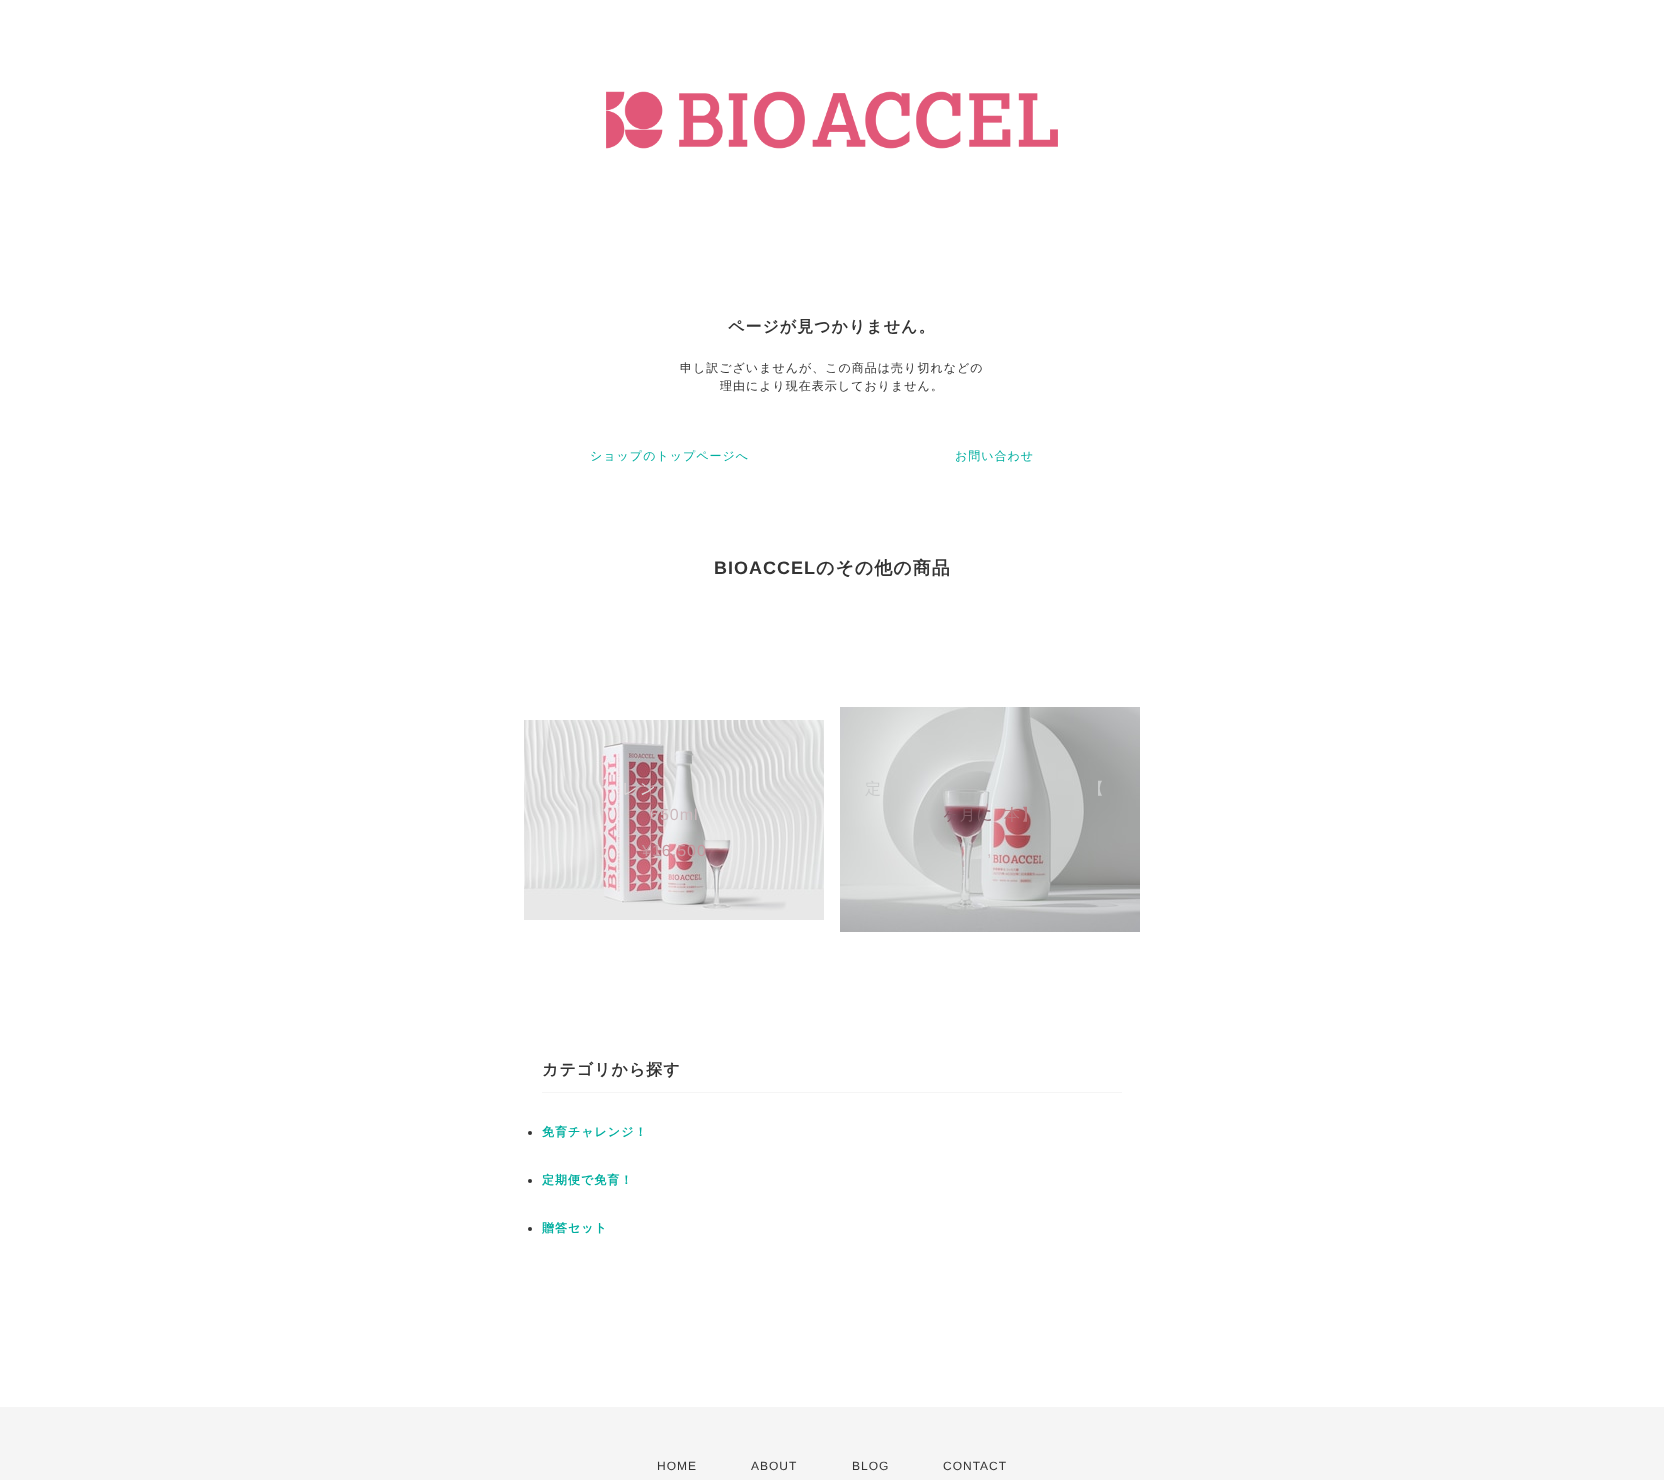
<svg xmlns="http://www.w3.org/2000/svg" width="1664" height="1480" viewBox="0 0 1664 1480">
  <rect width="100%" height="100%" fill="#ffffff"/>
  <image x="606" y="91" width="452" height="58" href="img1.png"/>
  <text x="728" y="332" font-family="WenQuanYi Zen Hei" font-size="16" font-weight="bold" letter-spacing="1" fill="#333333">ページが見つかりません。</text>
  <text x="680" y="372" font-family="WenQuanYi Zen Hei" font-size="12" font-weight="500" letter-spacing="1" fill="#333333">申し訳ございませんが、この商品は売り切れなどの</text>
  <text x="720" y="390" font-family="WenQuanYi Zen Hei" font-size="12" font-weight="500" letter-spacing="1" fill="#333333">理由により現在表示しておりません。</text>
  <text x="590" y="460" font-family="WenQuanYi Zen Hei" font-size="12" font-weight="500" letter-spacing="1" fill="#00ae9f">ショップのトップページへ</text>
  <text x="955" y="460" font-family="WenQuanYi Zen Hei" font-size="12" font-weight="500" letter-spacing="1" fill="#00ae9f">お問い合わせ</text>
  <text x="714" y="574" font-family="Liberation Sans" font-size="18" font-weight="bold" letter-spacing="1" fill="#333333">BIOACCEL</text>
  <text x="816" y="574" font-family="WenQuanYi Zen Hei" font-size="18" font-weight="bold" letter-spacing="1" fill="#333333">のその他の商品</text>
  <image x="524" y="720" width="300" height="200" href="img2.png"/>
  <text x="622" y="794" font-family="WenQuanYi Zen Hei" font-size="16" font-weight="500" letter-spacing="1" fill="#dbd4d5">レン</text>
  <text x="650" y="820" font-family="Liberation Sans" font-size="16" letter-spacing="1" fill="#ccbabe">650ml</text>
  <text x="642" y="856" font-family="Liberation Sans" font-size="16" letter-spacing="1" fill="#c8969e">¥16,500</text>
  <image x="840" y="707" width="300" height="225" href="img3.png"/>
  <text x="865" y="794" font-family="WenQuanYi Zen Hei" font-size="16" font-weight="500" letter-spacing="1" fill="#c9cbcb">定</text>
  <text x="1088" y="794" font-family="WenQuanYi Zen Hei" font-size="16" font-weight="500" letter-spacing="1" fill="#c9cbcb">【</text>
  <text x="942" y="820" font-family="WenQuanYi Zen Hei" font-size="16" font-weight="500" letter-spacing="1" fill="#845d66">ヶ月に</text>
  <text x="1004" y="820" font-family="WenQuanYi Zen Hei" font-size="16" font-weight="500" letter-spacing="1" fill="#ba787e">本】</text>
  <text x="987" y="856" font-family="Liberation Sans" font-size="16" letter-spacing="1" fill="#cdc1c3">,</text>
  <rect x="542" y="1092" width="580" height="1" fill="#f5f5f5"/>
  <text x="542" y="1075" font-family="WenQuanYi Zen Hei" font-size="16" font-weight="bold" letter-spacing="1" fill="#333333">カテゴリから探す</text>
  <circle cx="530" cy="1133" r="2" fill="#333333"/>
  <text x="542" y="1136" font-family="WenQuanYi Zen Hei" font-size="12" font-weight="bold" letter-spacing="1" fill="#00ae9f">免育チャレンジ！</text>
  <circle cx="530" cy="1181" r="2" fill="#333333"/>
  <text x="542" y="1184" font-family="WenQuanYi Zen Hei" font-size="12" font-weight="bold" letter-spacing="1" fill="#00ae9f">定期便で免育！</text>
  <circle cx="530" cy="1229" r="2" fill="#333333"/>
  <text x="542" y="1232" font-family="WenQuanYi Zen Hei" font-size="12" font-weight="bold" letter-spacing="1" fill="#00ae9f">贈答セット</text>
  <rect x="0" y="1407" width="1664" height="73" fill="#f5f5f5"/>
  <text x="657" y="1470" font-family="Liberation Sans" font-size="12" letter-spacing="1" fill="#333333">HOME</text>
  <text x="751" y="1470" font-family="Liberation Sans" font-size="12" letter-spacing="1" fill="#333333">ABOUT</text>
  <text x="852" y="1470" font-family="Liberation Sans" font-size="12" letter-spacing="1" fill="#333333">BLOG</text>
  <text x="943" y="1470" font-family="Liberation Sans" font-size="12" letter-spacing="1" fill="#333333">CONTACT</text>
</svg>
